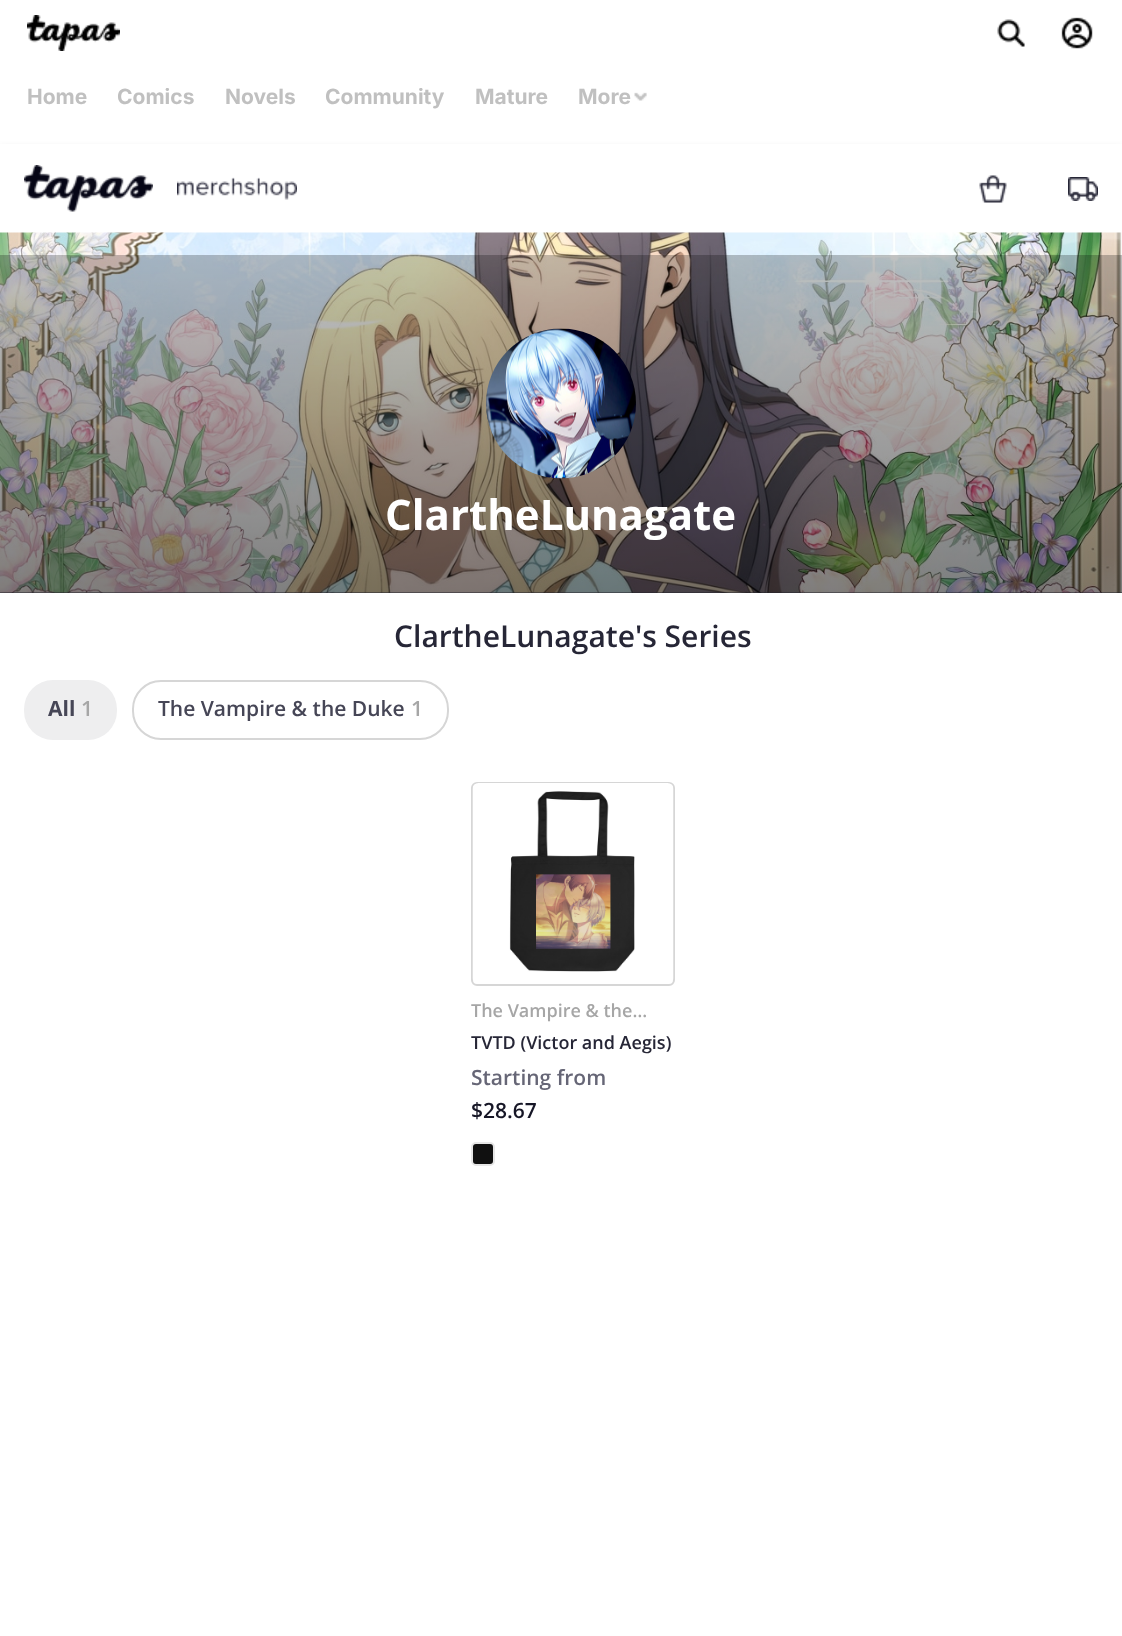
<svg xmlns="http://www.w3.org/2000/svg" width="1122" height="1636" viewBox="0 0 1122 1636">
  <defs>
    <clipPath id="clip1"><path d="M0 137H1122V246H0ZM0 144H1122V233H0Z" clip-rule="evenodd"/></clipPath>
    <filter id="blur1" x="-50%" y="-200%" width="200%" height="500%"><feGaussianBlur stdDeviation="3"/></filter>
    <linearGradient id="g1" gradientUnits="userSpaceOnUse" x1="561" y1="255" x2="561" y2="593"><stop offset="0" stop-color="#000000" stop-opacity="0.24"/><stop offset="1" stop-color="#000000" stop-opacity="0.5"/></linearGradient>
  </defs>
  <rect width="100%" height="100%" fill="#ffffff"/>
  <image x="27" y="15" width="93" height="36" href="img1.png"/>
  <image x="997" y="19" width="28" height="28" href="img2.png"/>
  <image x="1061" y="17" width="32" height="32" href="img3.png"/>
  <text x="27" y="104" font-family="Inter" font-size="21" font-weight="bold" fill="#c0c0c0">Home</text>
  <text x="117" y="104" font-family="Inter" font-size="21" font-weight="bold" fill="#c0c0c0">Comics</text>
  <text x="225" y="104" font-family="Inter" font-size="21" font-weight="bold" fill="#c0c0c0">Novels</text>
  <text x="325" y="104" font-family="Inter" font-size="21" font-weight="bold" fill="#c0c0c0">Community</text>
  <text x="475" y="104" font-family="Inter" font-size="21" font-weight="bold" fill="#c0c0c0">Mature</text>
  <text x="578" y="104" font-family="Inter" font-size="21" font-weight="bold" fill="#c0c0c0">More</text>
  <image x="634" y="92" width="13" height="9" href="img4.png"/>
  <g clip-path="url(#clip1)">
    <rect x="0" y="147" width="1122" height="89" fill="#000000" fill-opacity="0.1" filter="url(#blur1)"/>
  </g>
  <image x="24" y="165" width="129" height="47" href="img5.png"/>
  <image x="177" y="177" width="120" height="23" href="img6.png"/>
  <image x="979" y="175" width="28" height="28" href="img7.png"/>
  <image x="1068" y="177" width="30" height="24" href="img8.png"/>
  <rect x="0" y="592" width="1122" height="1" fill="#464656"/>
  <image x="0" y="232" width="1122" height="361" href="img9.png"/>
  <rect x="0" y="255" width="1122" height="338" fill="url(#g1)"/>
  <image x="486" y="328" width="150" height="151" href="img10.png"/>
  <text x="385" y="530" font-family="Open Sans" font-size="42" font-weight="bold" fill="#ffffff">ClartheLunagate</text>
  <text x="394" y="647" font-family="Open Sans" font-size="30" font-weight="600" fill="#262636">ClartheLunagate's Series</text>
  <rect x="24" y="680" width="93" height="60" rx="29" fill="#eeeeef"/>
  <text x="48" y="716" font-family="Open Sans" font-size="21" font-weight="bold" fill="#464656">All</text>
  <text x="81" y="716" font-family="Open Sans" font-size="21" font-weight="600" fill="#a6a6a6">1</text>
  <rect x="133" y="681" width="315" height="58" rx="28" fill="none" stroke="#d6d6d6" stroke-width="2"/>
  <text x="158" y="716" font-family="Open Sans" font-size="21" font-weight="600" fill="#464656">The Vampire &amp; the Duke</text>
  <text x="411" y="716" font-family="Open Sans" font-size="21" font-weight="600" fill="#a6a6a6">1</text>
  <rect x="472" y="783" width="202" height="202" rx="5" fill="none" stroke="#d6d6d6" stroke-width="2"/>
  <image x="472" y="783" width="202" height="197" href="img11.png"/>
  <text x="471" y="1017" font-family="Open Sans" font-size="18" font-weight="600" fill="#a6a6a6">The Vampire &amp; the…</text>
  <text x="471" y="1049" font-family="Open Sans" font-size="18" font-weight="600" fill="#262636">TVTD (Victor and Aegis)</text>
  <text x="471" y="1085" font-family="Open Sans" font-size="21" font-weight="600" fill="#666676">Starting from</text>
  <text x="471" y="1118" font-family="Open Sans" font-size="21" font-weight="600" fill="#161626">$28.67</text>
  <rect x="472" y="1143" width="22" height="22" rx="4" fill="#101010" stroke="#e6e6e6" stroke-width="2"/>
</svg>
